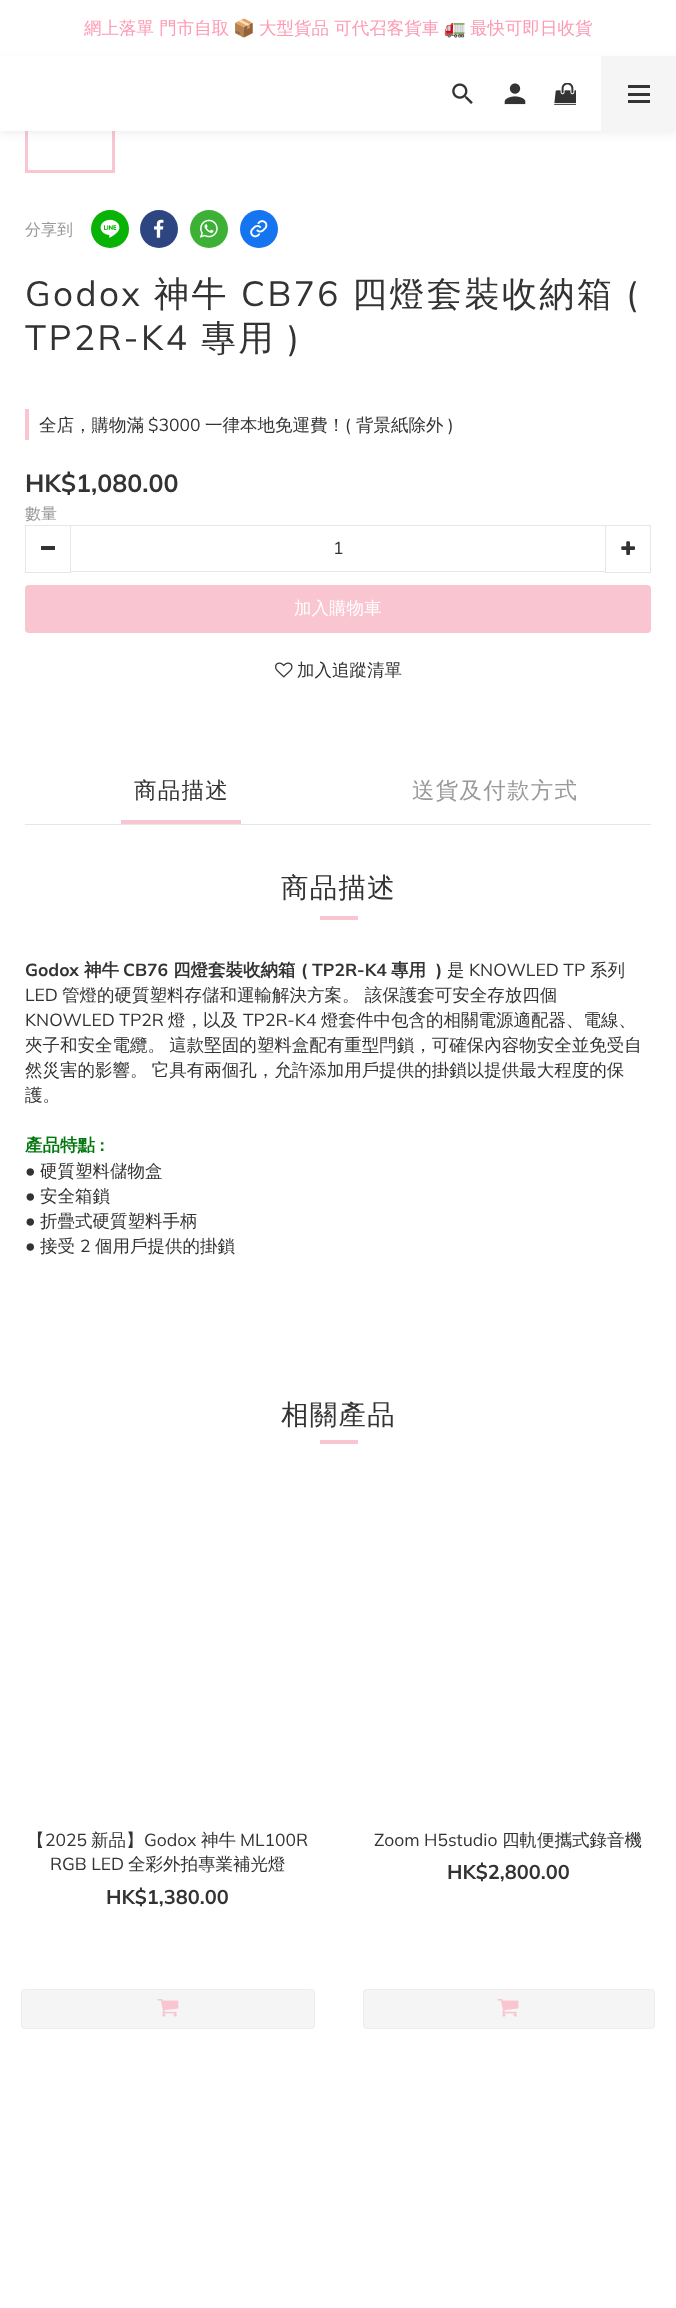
<svg xmlns="http://www.w3.org/2000/svg" width="676" height="2308" viewBox="0 0 676 2308">
  <defs>
    <filter id="blur1" x="-50%" y="-200%" width="200%" height="500%"><feGaussianBlur stdDeviation="4"/></filter>
  </defs>
  <rect width="100%" height="100%" fill="#ffffff"/>
  <text x="84" y="34" font-family="WenQuanYi Zen Hei" font-size="17.5" font-weight="500" fill="#fd9ab2">網上落單 門市自取</text>
  <text x="233" y="34" font-family="Noto Color Emoji" font-size="17.5" fill="#fd9ab2">📦</text>
  <text x="259" y="34" font-family="WenQuanYi Zen Hei" font-size="17.5" font-weight="500" fill="#fd9ab2">大型貨品 可代召客貨車</text>
  <text x="444" y="34" font-family="Noto Color Emoji" font-size="17.5" fill="#fd9ab2">🚛</text>
  <text x="470" y="34" font-family="WenQuanYi Zen Hei" font-size="17.5" font-weight="500" fill="#fd9ab2">最快可即日收貨</text>
  <rect x="26.5" y="84.5" width="87" height="87" fill="none" stroke="#f8c5d1" stroke-width="3"/>
  <rect x="0" y="59" width="676" height="75" fill="#000000" fill-opacity="0.06" filter="url(#blur1)"/>
  <rect x="0" y="56" width="601" height="75" fill="#ffffff"/>
  <image x="452" y="83" width="21" height="21" href="img1.png"/>
  <image x="504" y="83" width="22" height="22" href="img2.png"/>
  <image x="554" y="83" width="22" height="22" href="img3.png"/>
  <rect x="601" y="56" width="75" height="75" fill="#f5f5f5"/>
  <rect x="628" y="93" width="22" height="3" fill="#333333"/>
  <rect x="628" y="85" width="22" height="3" fill="#333333"/>
  <rect x="628" y="100" width="22" height="3" fill="#333333"/>
  <text x="25" y="235" font-family="WenQuanYi Zen Hei" font-size="16" font-weight="500" fill="#999999">分享到</text>
  <circle cx="110" cy="229" r="19" fill="#09b305"/>
  <image x="100" y="219" width="20" height="19" href="img4.png"/>
  <circle cx="159" cy="229" r="19" fill="#2d4682"/>
  <image x="154" y="219" width="10" height="19" href="img5.png"/>
  <circle cx="209" cy="229" r="19" fill="#3cb136"/>
  <image x="199" y="219" width="19" height="19" href="img6.png"/>
  <circle cx="259" cy="229" r="19" fill="#1575f0"/>
  <image x="250" y="220" width="18" height="18" href="img7.png"/>
  <text x="25" y="306" font-family="Mulish" font-size="35" letter-spacing="2.5" fill="#333333">Godox</text>
  <text x="154" y="306" font-family="WenQuanYi Zen Hei" font-size="35" font-weight="500" letter-spacing="2.5" fill="#333333">神牛</text>
  <text x="241" y="306" font-family="Mulish" font-size="35" letter-spacing="2.5" fill="#333333">CB76</text>
  <text x="352" y="306" font-family="WenQuanYi Zen Hei" font-size="35" font-weight="500" letter-spacing="2.5" fill="#333333">四燈套裝收納箱</text>
  <text x="626" y="306" font-family="Mulish" font-size="35" letter-spacing="2.5" fill="#333333">(</text>
  <text x="25" y="350" font-family="Mulish" font-size="35" letter-spacing="2.5" fill="#333333">TP2R-K4</text>
  <text x="201" y="350" font-family="WenQuanYi Zen Hei" font-size="35" font-weight="500" letter-spacing="2.5" fill="#333333">專用</text>
  <text x="288" y="350" font-family="Mulish" font-size="35" letter-spacing="2.5" fill="#333333">)</text>
  <rect x="25" y="409" width="4" height="31" fill="#f8c5d1"/>
  <text x="39" y="431" font-family="WenQuanYi Zen Hei" font-size="17.5" font-weight="500" fill="#333333">全店，購物滿</text>
  <text x="148" y="431" font-family="Mulish" font-size="17.5" fill="#333333">$3000</text>
  <text x="205" y="431" font-family="WenQuanYi Zen Hei" font-size="17.5" font-weight="500" fill="#333333">一律本地免運費！</text>
  <text x="345" y="431" font-family="Mulish" font-size="17.5" fill="#333333">(</text>
  <text x="356" y="431" font-family="WenQuanYi Zen Hei" font-size="17.5" font-weight="500" fill="#333333">背景紙除外</text>
  <text x="448" y="431" font-family="Mulish" font-size="17.5" fill="#333333">)</text>
  <text x="25" y="492" font-family="Mulish" font-size="25" font-weight="bold" fill="#333333">HK$1,080.00</text>
  <text x="25" y="519" font-family="WenQuanYi Zen Hei" font-size="16" font-weight="500" fill="#999999">數量</text>
  <rect x="70" y="525" width="536" height="1" fill="#e6e6e6"/>
  <rect x="70" y="571" width="536" height="1" fill="#e6e6e6"/>
  <rect x="25.5" y="525.5" width="45" height="47" fill="none" stroke="#e6e6e6"/>
  <rect x="41" y="546" width="14" height="4" fill="#333333"/>
  <text x="333" y="554" font-family="Mulish" font-size="17.5" fill="#333333">1</text>
  <rect x="605.5" y="525.5" width="45" height="47" fill="none" stroke="#e6e6e6"/>
  <image x="621" y="541" width="14" height="14" href="img8.png"/>
  <rect x="25" y="585" width="626" height="48" rx="4" fill="#f8c5d1"/>
  <text x="294" y="614" font-family="WenQuanYi Zen Hei" font-size="17.5" font-weight="500" fill="#ffffff">加入購物車</text>
  <image x="275" y="662" width="18" height="16" href="img9.png"/>
  <text x="297" y="676" font-family="WenQuanYi Zen Hei" font-size="17.5" font-weight="500" fill="#333333">加入追蹤清單</text>
  <rect x="25" y="824" width="626" height="1" fill="#e6e6e6"/>
  <text x="134" y="798" font-family="WenQuanYi Zen Hei" font-size="22.5" font-weight="500" letter-spacing="1.25" fill="#333333">商品描述</text>
  <rect x="121" y="820" width="120" height="4" fill="#f8c5d1"/>
  <text x="412" y="798" font-family="WenQuanYi Zen Hei" font-size="22.5" font-weight="500" letter-spacing="1.25" fill="#999999">送貨及付款方式</text>
  <text x="281" y="897" font-family="WenQuanYi Zen Hei" font-size="27.5" font-weight="500" letter-spacing="1.25" fill="#333333">商品描述</text>
  <rect x="320" y="916" width="38" height="4" fill="#f8c5d1"/>
  <text x="25" y="976" font-family="Mulish" font-size="17.5" font-weight="bold" fill="#333333">Godox</text>
  <text x="84" y="976" font-family="WenQuanYi Zen Hei" font-size="17.5" font-weight="bold" fill="#333333">神牛</text>
  <text x="123" y="976" font-family="Mulish" font-size="17.5" font-weight="bold" fill="#333333">CB76</text>
  <text x="173" y="976" font-family="WenQuanYi Zen Hei" font-size="17.5" font-weight="bold" fill="#333333">四燈套裝收納箱</text>
  <text x="301" y="976" font-family="Mulish" font-size="17.5" font-weight="bold" fill="#333333">( TP2R-K4</text>
  <text x="391" y="976" font-family="WenQuanYi Zen Hei" font-size="17.5" font-weight="bold" fill="#333333">專用</text>
  <text x="436" y="976" font-family="Mulish" font-size="17.5" font-weight="bold" fill="#333333">)</text>
  <text x="447" y="976" font-family="WenQuanYi Zen Hei" font-size="17.5" font-weight="500" fill="#333333">是</text>
  <text x="469" y="976" font-family="Mulish" font-size="17.5" fill="#333333">KNOWLED TP</text>
  <text x="590" y="976" font-family="WenQuanYi Zen Hei" font-size="17.5" font-weight="500" fill="#333333">系列</text>
  <text x="25" y="1001" font-family="Mulish" font-size="17.5" fill="#333333">LED</text>
  <text x="62" y="1001" font-family="WenQuanYi Zen Hei" font-size="17.5" font-weight="500" fill="#333333">管燈的硬質塑料存儲和運輸解決方案。 該保護套可安全存放四個</text>
  <text x="25" y="1026" font-family="Mulish" font-size="17.5" fill="#333333">KNOWLED TP2R</text>
  <text x="168" y="1026" font-family="WenQuanYi Zen Hei" font-size="17.5" font-weight="500" fill="#333333">燈，以及</text>
  <text x="243" y="1026" font-family="Mulish" font-size="17.5" fill="#333333">TP2R-K4</text>
  <text x="321" y="1026" font-family="WenQuanYi Zen Hei" font-size="17.5" font-weight="500" fill="#333333">燈套件中包含的相關電源適配器、電線、</text>
  <text x="25" y="1051" word-spacing="-1" font-family="WenQuanYi Zen Hei" font-size="17.5" font-weight="500" fill="#333333">夾子和安全電纜。 這款堅固的塑料盒配有重型閂鎖，可確保內容物安全並免受自</text>
  <text x="25" y="1076" word-spacing="-1" font-family="WenQuanYi Zen Hei" font-size="17.5" font-weight="500" fill="#333333">然災害的影響。 它具有兩個孔，允許添加用戶提供的掛鎖以提供最大程度的保</text>
  <text x="25" y="1101" font-family="WenQuanYi Zen Hei" font-size="17.5" font-weight="500" fill="#333333">護。</text>
  <text x="25" y="1151" font-family="WenQuanYi Zen Hei" font-size="17.5" font-weight="bold" fill="#02780c">產品特點</text>
  <text x="100" y="1151" font-family="Mulish" font-size="17.5" font-weight="bold" fill="#02780c">:</text>
  <text x="25" y="1177" font-family="Liberation Sans" font-size="17.5" fill="#333333">●</text>
  <text x="40" y="1177" font-family="WenQuanYi Zen Hei" font-size="17.5" font-weight="500" fill="#333333">硬質塑料儲物盒</text>
  <text x="25" y="1202" font-family="Liberation Sans" font-size="17.5" fill="#333333">●</text>
  <text x="40" y="1202" font-family="WenQuanYi Zen Hei" font-size="17.5" font-weight="500" fill="#333333">安全箱鎖</text>
  <text x="25" y="1227" font-family="Liberation Sans" font-size="17.5" fill="#333333">●</text>
  <text x="40" y="1227" font-family="WenQuanYi Zen Hei" font-size="17.5" font-weight="500" fill="#333333">折疊式硬質塑料手柄</text>
  <text x="25" y="1252" font-family="Liberation Sans" font-size="17.5" fill="#333333">●</text>
  <text x="40" y="1252" font-family="WenQuanYi Zen Hei" font-size="17.5" font-weight="500" fill="#333333">接受</text>
  <text x="80" y="1252" font-family="Mulish" font-size="17.5" fill="#333333">2</text>
  <text x="95" y="1252" font-family="WenQuanYi Zen Hei" font-size="17.5" font-weight="500" fill="#333333">個用戶提供的掛鎖</text>
  <text x="281" y="1424" font-family="WenQuanYi Zen Hei" font-size="27.5" font-weight="500" letter-spacing="1.25" fill="#333333">相關產品</text>
  <rect x="320" y="1440" width="38" height="4" fill="#f8c5d1"/>
  <text x="27" y="1846" font-family="WenQuanYi Zen Hei" font-size="17.5" font-weight="500" fill="#333333">【</text>
  <text x="45" y="1846" font-family="Mulish" font-size="17.5" fill="#333333">2025</text>
  <text x="91" y="1846" font-family="WenQuanYi Zen Hei" font-size="17.5" font-weight="500" fill="#333333">新品】</text>
  <text x="144" y="1846" font-family="Mulish" font-size="17.5" fill="#333333">Godox</text>
  <text x="201" y="1846" font-family="WenQuanYi Zen Hei" font-size="17.5" font-weight="500" fill="#333333">神牛</text>
  <text x="240" y="1846" font-family="Mulish" font-size="17.5" fill="#333333">ML100R</text>
  <text x="50" y="1870" font-family="Mulish" font-size="17.5" fill="#333333">RGB LED</text>
  <text x="128" y="1870" font-family="WenQuanYi Zen Hei" font-size="17.5" font-weight="500" fill="#333333">全彩外拍專業補光燈</text>
  <text x="106" y="1904" font-family="Mulish" font-size="20" font-weight="bold" fill="#333333">HK$1,380.00</text>
  <rect x="21" y="1989" width="294" height="40" rx="4" fill="#f5f5f5"/>
  <rect x="21.5" y="1989.5" width="293" height="39" rx="3.5" fill="none" stroke="#cccccc" stroke-opacity="0.2"/>
  <image x="157" y="1999" width="22" height="18" href="img10.png"/>
  <text x="374" y="1846" font-family="Mulish" font-size="17.5" fill="#333333">Zoom H5studio</text>
  <text x="502" y="1846" font-family="WenQuanYi Zen Hei" font-size="17.5" font-weight="500" fill="#333333">四軌便攜式錄音機</text>
  <text x="447" y="1879" font-family="Mulish" font-size="20" font-weight="bold" fill="#333333">HK$2,800.00</text>
  <rect x="363" y="1989" width="292" height="40" rx="4" fill="#f5f5f5"/>
  <rect x="363.5" y="1989.5" width="291" height="39" rx="3.5" fill="none" stroke="#cccccc" stroke-opacity="0.2"/>
  <image x="497" y="1999" width="22" height="18" href="img10.png"/>
</svg>
